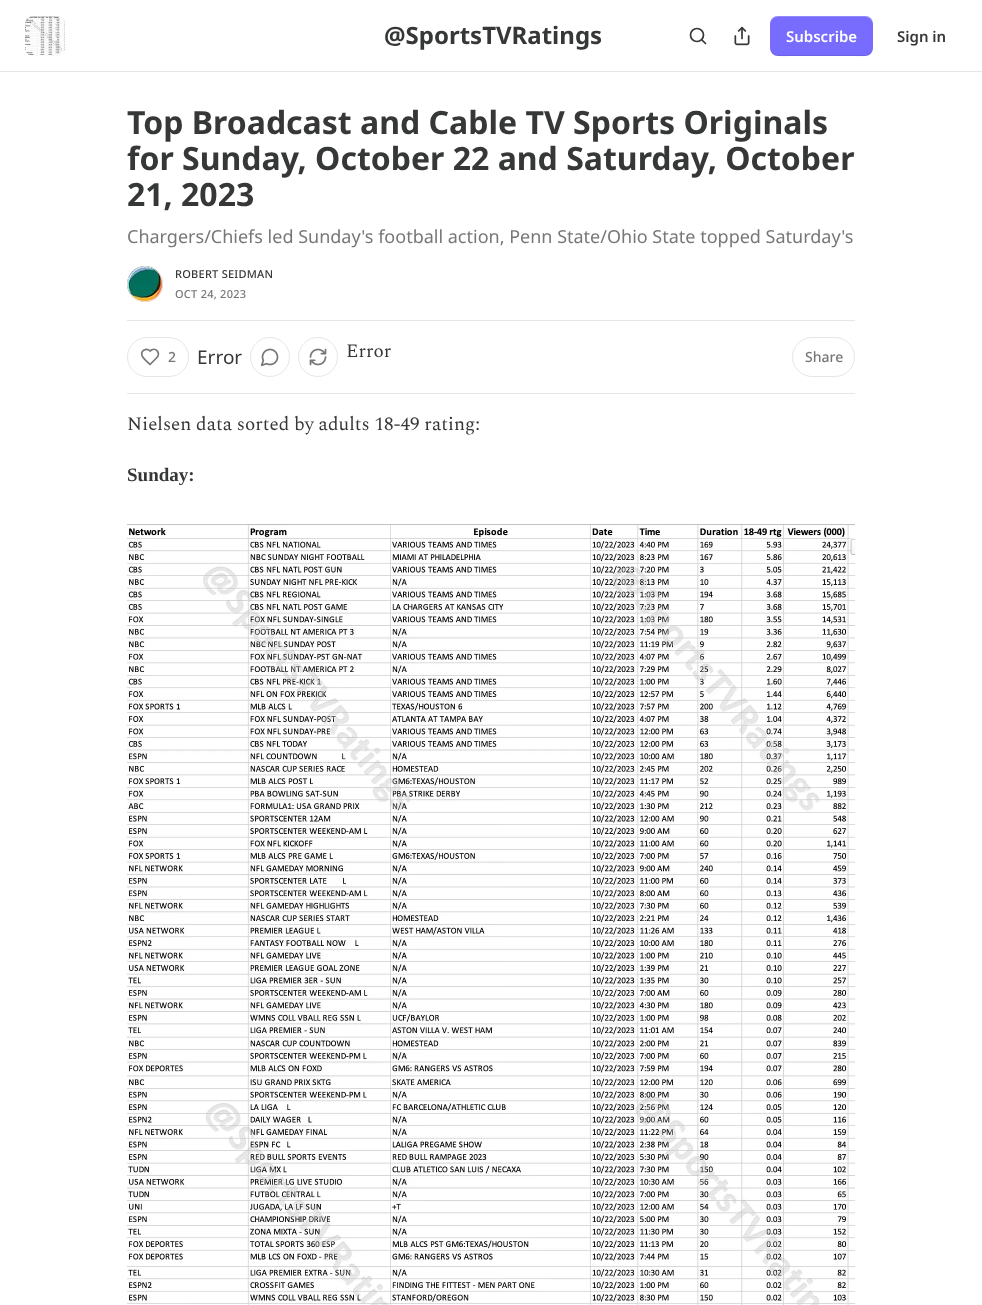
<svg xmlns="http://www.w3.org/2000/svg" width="982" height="1305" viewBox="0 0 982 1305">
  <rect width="100%" height="100%" fill="#ffffff"/>
  <rect x="0" y="71" width="982" height="1" fill="#e6e6e6"/>
  <image x="25" y="16" width="40" height="40" href="img1.png"/>
  <text x="384" y="44" font-family="Noto Sans" font-size="24" font-weight="bold" fill="#363737">@SportsTVRatings</text>
  <circle cx="697" cy="35" r="6.5" fill="none" stroke="#363737" stroke-width="1.7"/>
  <path d="M705.5 43.5L702 40" fill="none" stroke="#363737" stroke-width="1.7" stroke-linecap="round" stroke-linejoin="round"/>
  <image x="734" y="26" width="16" height="20" href="img2.png"/>
  <rect x="770" y="16" width="103" height="40" rx="8" fill="#786cff"/>
  <path d="M770 47C770 59 784 56 792 56H850C859 56 873 59 873 47C873 51 869 55 865 55H778C774 55 770 51 770 47Z" fill="#000000" fill-opacity="0.1"/>
  <path d="M778 17H865C869 17 873 21 873 25C873 13 859 16 850 16H792C784 16 770 13 770 25C770 21 774 17 778 17Z" fill="#ffffff" fill-opacity="0.2"/>
  <text x="786" y="42" font-family="Noto Sans" font-size="15" font-weight="600" fill="#ffffff">Subscribe</text>
  <text x="897" y="42" font-family="Noto Sans" font-size="15" font-weight="600" fill="#363737">Sign in</text>
  <text x="127" y="134" font-family="Noto Sans" font-size="32" font-weight="bold" fill="#363737">Top Broadcast and Cable TV Sports Originals</text>
  <text x="127" y="170" font-family="Noto Sans" font-size="32" font-weight="bold" fill="#363737">for Sunday, October 22 and Saturday, October</text>
  <text x="127" y="206" font-family="Noto Sans" font-size="32" font-weight="bold" fill="#363737">21, 2023</text>
  <text x="127" y="243" font-family="Noto Sans" font-size="18" fill="#777777">Chargers/Chiefs led Sunday's football action, Penn State/Ohio State topped Saturday's</text>
  <circle cx="145" cy="284" r="17.5" fill="none" stroke="#e6e6e6"/>
  <image x="127" y="266" width="36" height="36" href="img3.png"/>
  <circle cx="145" cy="284" r="17.5" fill="none" stroke="#e6e6e6"/>
  <text x="175" y="278" font-family="Noto Sans" font-size="11" font-weight="500" letter-spacing="0.25" fill="#363737">ROBERT SEIDMAN</text>
  <text x="175" y="298" font-family="Noto Sans" font-size="11" font-weight="500" letter-spacing="0.25" fill="#777777">OCT 24, 2023</text>
  <rect x="127" y="320" width="728" height="1" fill="#e6e6e6"/>
  <rect x="127" y="393" width="728" height="1" fill="#e6e6e6"/>
  <rect x="127.5" y="337.5" width="61" height="39" rx="19.5" fill="none" stroke="#e6e6e6"/>
  <path d="M156 358.5C162 352.5 155 346.5 150 351C146.5 347.5 140.5 350.5 142 355.5C143 358.5 148 362.5 150 364.5Z" fill="none" stroke="#777777" stroke-width="1.7" stroke-linecap="round" stroke-linejoin="round"/>
  <text x="168" y="362" font-family="Noto Sans" font-size="14" font-weight="500" fill="#777777">2</text>
  <text x="197" y="364" font-family="Noto Sans" font-size="19" fill="#363737">Error</text>
  <circle cx="270" cy="357" r="19.5" fill="none" stroke="#e6e6e6"/>
  <image x="260" y="348" width="19" height="19" href="img4.png"/>
  <circle cx="318" cy="357" r="19.5" fill="none" stroke="#e6e6e6"/>
  <image x="309" y="348" width="18" height="18" href="img5.png"/>
  <text x="346" y="357" font-family="Spectral" font-size="19" fill="#363737">Error</text>
  <rect x="792.5" y="337.5" width="62" height="39" rx="19.5" fill="none" stroke="#e6e6e6"/>
  <text x="805" y="362" font-family="Noto Sans" font-size="14" font-weight="500" fill="#777777">Share</text>
  <text x="127" y="430" font-family="Spectral" font-size="19" fill="#363737">Nielsen data sorted by adults 18-49 rating:</text>
  <text x="127" y="481" font-family="Liberation Serif" font-size="19" font-weight="bold" fill="#363737">Sunday:</text>
  <image x="127" y="524" width="728" height="781" href="img6.png"/>
</svg>
